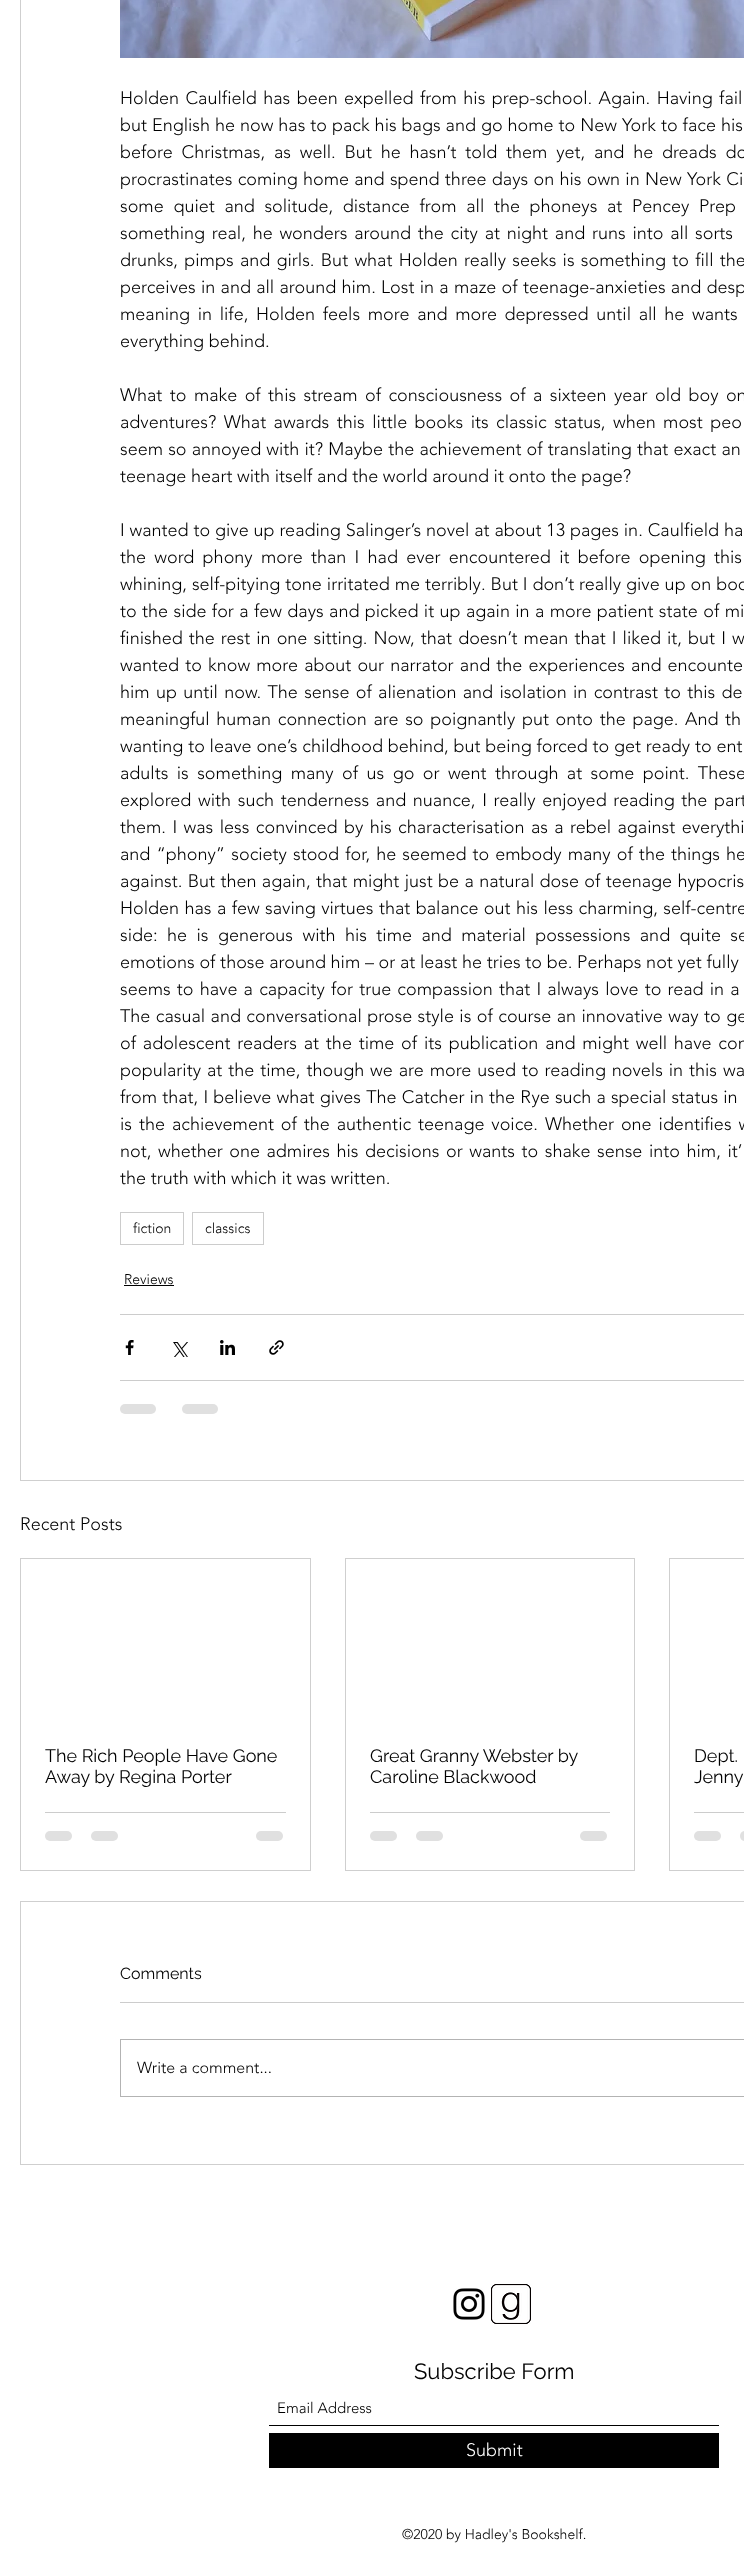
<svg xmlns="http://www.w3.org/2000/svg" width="744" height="2558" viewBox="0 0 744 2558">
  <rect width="100%" height="100%" fill="#ffffff"/>
  <rect x="20.5" y="-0.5" width="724" height="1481" fill="none" stroke="#cfcfcf"/>
  <image x="120" y="0" width="624" height="58" href="img1.png"/>
  <text x="120" y="104" word-spacing="1.75" font-family="'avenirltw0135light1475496'" font-size="18" font-weight="300" fill="#000000">Holden Caulfield has been expelled from his prep-school. Again. Having fail</text>
  <text x="120" y="131" word-spacing="0.3" font-family="'avenirltw0135light1475496'" font-size="18" font-weight="300" fill="#000000">but English he now has to pack his bags and go home to New York to face his</text>
  <text x="120" y="158" word-spacing="4.1" font-family="'avenirltw0135light1475496'" font-size="18" font-weight="300" fill="#000000">before Christmas, as well. But he hasn’t told them yet, and he dreads do</text>
  <text x="120" y="185" word-spacing="0.6" font-family="'avenirltw0135light1475496'" font-size="18" font-weight="300" fill="#000000">procrastinates coming home and spend three days on his own in New York Ci</text>
  <text x="120" y="212" word-spacing="5" font-family="'avenirltw0135light1475496'" font-size="18" font-weight="300" fill="#000000">some quiet and solitude, distance from all the phoneys at Pencey Prep</text>
  <text x="120" y="239" word-spacing="2.1" font-family="'avenirltw0135light1475496'" font-size="18" font-weight="300" fill="#000000">something real, he wonders around the city at night and runs into all sorts</text>
  <text x="120" y="266" word-spacing="1.6" font-family="'avenirltw0135light1475496'" font-size="18" font-weight="300" fill="#000000">drunks, pimps and girls. But what Holden really seeks is something to fill the</text>
  <text x="120" y="293" word-spacing="0.6" font-family="'avenirltw0135light1475496'" font-size="18" font-weight="300" fill="#000000">perceives in and all around him. Lost in a maze of teenage-anxieties and desp</text>
  <text x="120" y="320" word-spacing="3" font-family="'avenirltw0135light1475496'" font-size="18" font-weight="300" fill="#000000">meaning in life, Holden feels more and more depressed until all he wants</text>
  <text x="120" y="347" font-family="'avenirltw0135light1475496'" font-size="18" font-weight="300" fill="#000000">everything behind.</text>
  <text x="120" y="401" word-spacing="2.75" font-family="'avenirltw0135light1475496'" font-size="18" font-weight="300" fill="#000000">What to make of this stream of consciousness of a sixteen year old boy on</text>
  <text x="120" y="428" word-spacing="2.75" font-family="'avenirltw0135light1475496'" font-size="18" font-weight="300" fill="#000000">adventures? What awards this little books its classic status, when most peo</text>
  <text x="120" y="455" word-spacing="0.5" font-family="'avenirltw0135light1475496'" font-size="18" font-weight="300" fill="#000000">seem so annoyed with it? Maybe the achievement of translating that exact an</text>
  <text x="120" y="482" font-family="'avenirltw0135light1475496'" font-size="18" font-weight="300" fill="#000000">teenage heart with itself and the world around it onto the page?</text>
  <text x="120" y="536" word-spacing="0.2" font-family="'avenirltw0135light1475496'" font-size="18" font-weight="300" fill="#000000">I wanted to give up reading Salinger’s novel at about 13 pages in. Caulfield ha</text>
  <text x="120" y="563" word-spacing="3.6" font-family="'avenirltw0135light1475496'" font-size="18" font-weight="300" fill="#000000">the word phony more than I had ever encountered it before opening this</text>
  <text x="120" y="590" word-spacing="0.25" font-family="'avenirltw0135light1475496'" font-size="18" font-weight="300" fill="#000000">whining, self-pitying tone irritated me terribly. But I don’t really give up on boo</text>
  <text x="120" y="617" word-spacing="0.7" font-family="'avenirltw0135light1475496'" font-size="18" font-weight="300" fill="#000000">to the side for a few days and picked it up again in a more patient state of mi</text>
  <text x="120" y="644" word-spacing="1.4" font-family="'avenirltw0135light1475496'" font-size="18" font-weight="300" fill="#000000">finished the rest in one sitting. Now, that doesn’t mean that I liked it, but I w</text>
  <text x="120" y="671" word-spacing="1.5" font-family="'avenirltw0135light1475496'" font-size="18" font-weight="300" fill="#000000">wanted to know more about our narrator and the experiences and encounte</text>
  <text x="120" y="698" word-spacing="1.6" font-family="'avenirltw0135light1475496'" font-size="18" font-weight="300" fill="#000000">him up until now. The sense of alienation and isolation in contrast to this de</text>
  <text x="120" y="725" word-spacing="2" font-family="'avenirltw0135light1475496'" font-size="18" font-weight="300" fill="#000000">meaningful human connection are so poignantly put onto the page. And th</text>
  <text x="120" y="752" word-spacing="0.1" font-family="'avenirltw0135light1475496'" font-size="18" font-weight="300" fill="#000000">wanting to leave one’s childhood behind, but being forced to get ready to ent</text>
  <text x="120" y="779" word-spacing="3.75" font-family="'avenirltw0135light1475496'" font-size="18" font-weight="300" fill="#000000">adults is something many of us go or went through at some point. These</text>
  <text x="120" y="806" word-spacing="2" font-family="'avenirltw0135light1475496'" font-size="18" font-weight="300" fill="#000000">explored with such tenderness and nuance, I really enjoyed reading the part</text>
  <text x="120" y="833" word-spacing="1.75" font-family="'avenirltw0135light1475496'" font-size="18" font-weight="300" fill="#000000">them. I was less convinced by his characterisation as a rebel against everythi</text>
  <text x="120" y="860" word-spacing="1.4" font-family="'avenirltw0135light1475496'" font-size="18" font-weight="300" fill="#000000">and “phony” society stood for, he seemed to embody many of the things he</text>
  <text x="120" y="887" word-spacing="0.7" font-family="'avenirltw0135light1475496'" font-size="18" font-weight="300" fill="#000000">against. But then again, that might just be a natural dose of teenage hypocris</text>
  <text x="120" y="914" word-spacing="0.75" font-family="'avenirltw0135light1475496'" font-size="18" font-weight="300" fill="#000000">Holden has a few saving virtues that balance out his less charming, self-centre</text>
  <text x="120" y="941" word-spacing="4.75" font-family="'avenirltw0135light1475496'" font-size="18" font-weight="300" fill="#000000">side: he is generous with his time and material possessions and quite se</text>
  <text x="120" y="968" font-family="'avenirltw0135light1475496'" font-size="18" font-weight="300" fill="#000000">emotions of those around him – or at least he tries to be. Perhaps not yet fully</text>
  <text x="120" y="995" word-spacing="1.5" font-family="'avenirltw0135light1475496'" font-size="18" font-weight="300" fill="#000000">seems to have a capacity for true compassion that I always love to read in a</text>
  <text x="120" y="1022" word-spacing="0.75" font-family="'avenirltw0135light1475496'" font-size="18" font-weight="300" fill="#000000">The casual and conversational prose style is of course an innovative way to ge</text>
  <text x="120" y="1049" word-spacing="2.1" font-family="'avenirltw0135light1475496'" font-size="18" font-weight="300" fill="#000000">of adolescent readers at the time of its publication and might well have con</text>
  <text x="120" y="1076" word-spacing="1.25" font-family="'avenirltw0135light1475496'" font-size="18" font-weight="300" fill="#000000">popularity at the time, though we are more used to reading novels in this wa</text>
  <text x="120" y="1103" word-spacing="0.5" font-family="'avenirltw0135light1475496'" font-size="18" font-weight="300" fill="#000000">from that, I believe what gives The Catcher in the Rye such a special status in</text>
  <text x="120" y="1130" word-spacing="2.25" font-family="'avenirltw0135light1475496'" font-size="18" font-weight="300" fill="#000000">is the achievement of the authentic teenage voice. Whether one identifies w</text>
  <text x="120" y="1157" word-spacing="1.9" font-family="'avenirltw0135light1475496'" font-size="18" font-weight="300" fill="#000000">not, whether one admires his decisions or wants to shake sense into him, it’</text>
  <text x="120" y="1184" font-family="'avenirltw0135light1475496'" font-size="18" font-weight="300" fill="#000000">the truth with which it was written.</text>
  <rect x="120.5" y="1212.5" width="63" height="32" fill="none" stroke="#cccccc"/>
  <text x="133" y="1233" font-family="'avenirltw0135light1475496'" font-size="14" font-weight="300" fill="#000000">fiction</text>
  <rect x="192.5" y="1212.5" width="71" height="32" fill="none" stroke="#cccccc"/>
  <text x="205" y="1233" font-family="'avenirltw0135light1475496'" font-size="14" font-weight="300" fill="#000000">classics</text>
  <text x="124" y="1284" font-family="'avenirltw0135light1475496'" font-size="14" font-weight="300" fill="#000000">Reviews</text>
  <rect x="124" y="1285" width="50" height="1" fill="#000000"/>
  <rect x="120" y="1314" width="624" height="1" fill="#cccccc"/>
  <image x="125" y="1340" width="9" height="15" href="img2.png"/>
  <image x="173" y="1342" width="15" height="15" href="img3.png"/>
  <image x="220" y="1340" width="15" height="15" href="img4.png"/>
  <image x="269" y="1340" width="15" height="15" href="img5.png"/>
  <rect x="120" y="1380" width="624" height="1" fill="#cccccc"/>
  <rect x="120" y="1404" width="36" height="10" rx="5" fill="#e0e0e0"/>
  <rect x="182" y="1404" width="36" height="10" rx="5" fill="#e0e0e0"/>
  <text x="20" y="1530" font-family="'avenirltw0135light1475496'" font-size="18" font-weight="300" fill="#000000">Recent Posts</text>
  <rect x="20.5" y="1558.5" width="290" height="312" fill="none" stroke="#cfcfcf"/>
  <text x="45" y="1762" font-family="Raleway" font-size="18" fill="#000000">The Rich People Have Gone</text>
  <text x="45" y="1783" font-family="Raleway" font-size="18" fill="#000000">Away by Regina Porter</text>
  <rect x="45" y="1812" width="241" height="1" fill="#cccccc"/>
  <rect x="45" y="1831" width="27" height="10" rx="5" fill="#e0e0e0"/>
  <rect x="91" y="1831" width="27" height="10" rx="5" fill="#e0e0e0"/>
  <rect x="256" y="1831" width="27" height="10" rx="5" fill="#e0e0e0"/>
  <rect x="345.5" y="1558.5" width="289" height="312" fill="none" stroke="#cfcfcf"/>
  <text x="370" y="1762" font-family="Raleway" font-size="18" fill="#000000">Great Granny Webster by</text>
  <text x="370" y="1783" font-family="Raleway" font-size="18" fill="#000000">Caroline Blackwood</text>
  <rect x="370" y="1812" width="240" height="1" fill="#cccccc"/>
  <rect x="370" y="1831" width="27" height="10" rx="5" fill="#e0e0e0"/>
  <rect x="416" y="1831" width="27" height="10" rx="5" fill="#e0e0e0"/>
  <rect x="580" y="1831" width="27" height="10" rx="5" fill="#e0e0e0"/>
  <rect x="669.5" y="1558.5" width="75" height="312" fill="none" stroke="#cfcfcf"/>
  <text x="694" y="1762" font-family="Raleway" font-size="18" fill="#000000">Dept.</text>
  <text x="694" y="1783" font-family="Raleway" font-size="18" fill="#000000">Jenny</text>
  <rect x="694" y="1812" width="50" height="1" fill="#cccccc"/>
  <rect x="694" y="1831" width="27" height="10" rx="5" fill="#e0e0e0"/>
  <rect x="740" y="1831" width="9" height="10" rx="5" fill="#e0e0e0"/>
  <rect x="20.5" y="1901.5" width="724" height="263" fill="none" stroke="#cfcfcf"/>
  <text x="120" y="1979" font-family="Raleway" font-size="16" fill="#000000">Comments</text>
  <rect x="120" y="2002" width="624" height="1" fill="#cccccc"/>
  <rect x="120.5" y="2039.5" width="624" height="57" fill="none" stroke="#b3b3b3"/>
  <text x="137" y="2073" font-family="'avenirltw0135light1475496'" font-size="16" font-weight="300" fill="#000000">Write a comment...</text>
  <image x="453" y="2288" width="32" height="32" href="img6.png"/>
  <image x="491" y="2284" width="40" height="40" href="img7.png"/>
  <text x="414" y="2379" font-family="Raleway" font-size="22" fill="#000000">Subscribe Form</text>
  <rect x="269" y="2425" width="450" height="1" fill="#000000"/>
  <text x="277" y="2413" font-family="'avenirltw0135light1475496'" font-size="15" font-weight="300" fill="#000000">Email Address</text>
  <rect x="269" y="2433" width="450" height="35" fill="#000000"/>
  <text x="466" y="2456" font-family="'avenirltw0135light1475496'" font-size="18" font-weight="300" fill="#ffffff">Submit</text>
  <text x="402" y="2539" font-family="'avenirltw0135light1475496'" font-size="14" font-weight="300" fill="#000000">©2020 by Hadley's Bookshelf.</text>
</svg>
